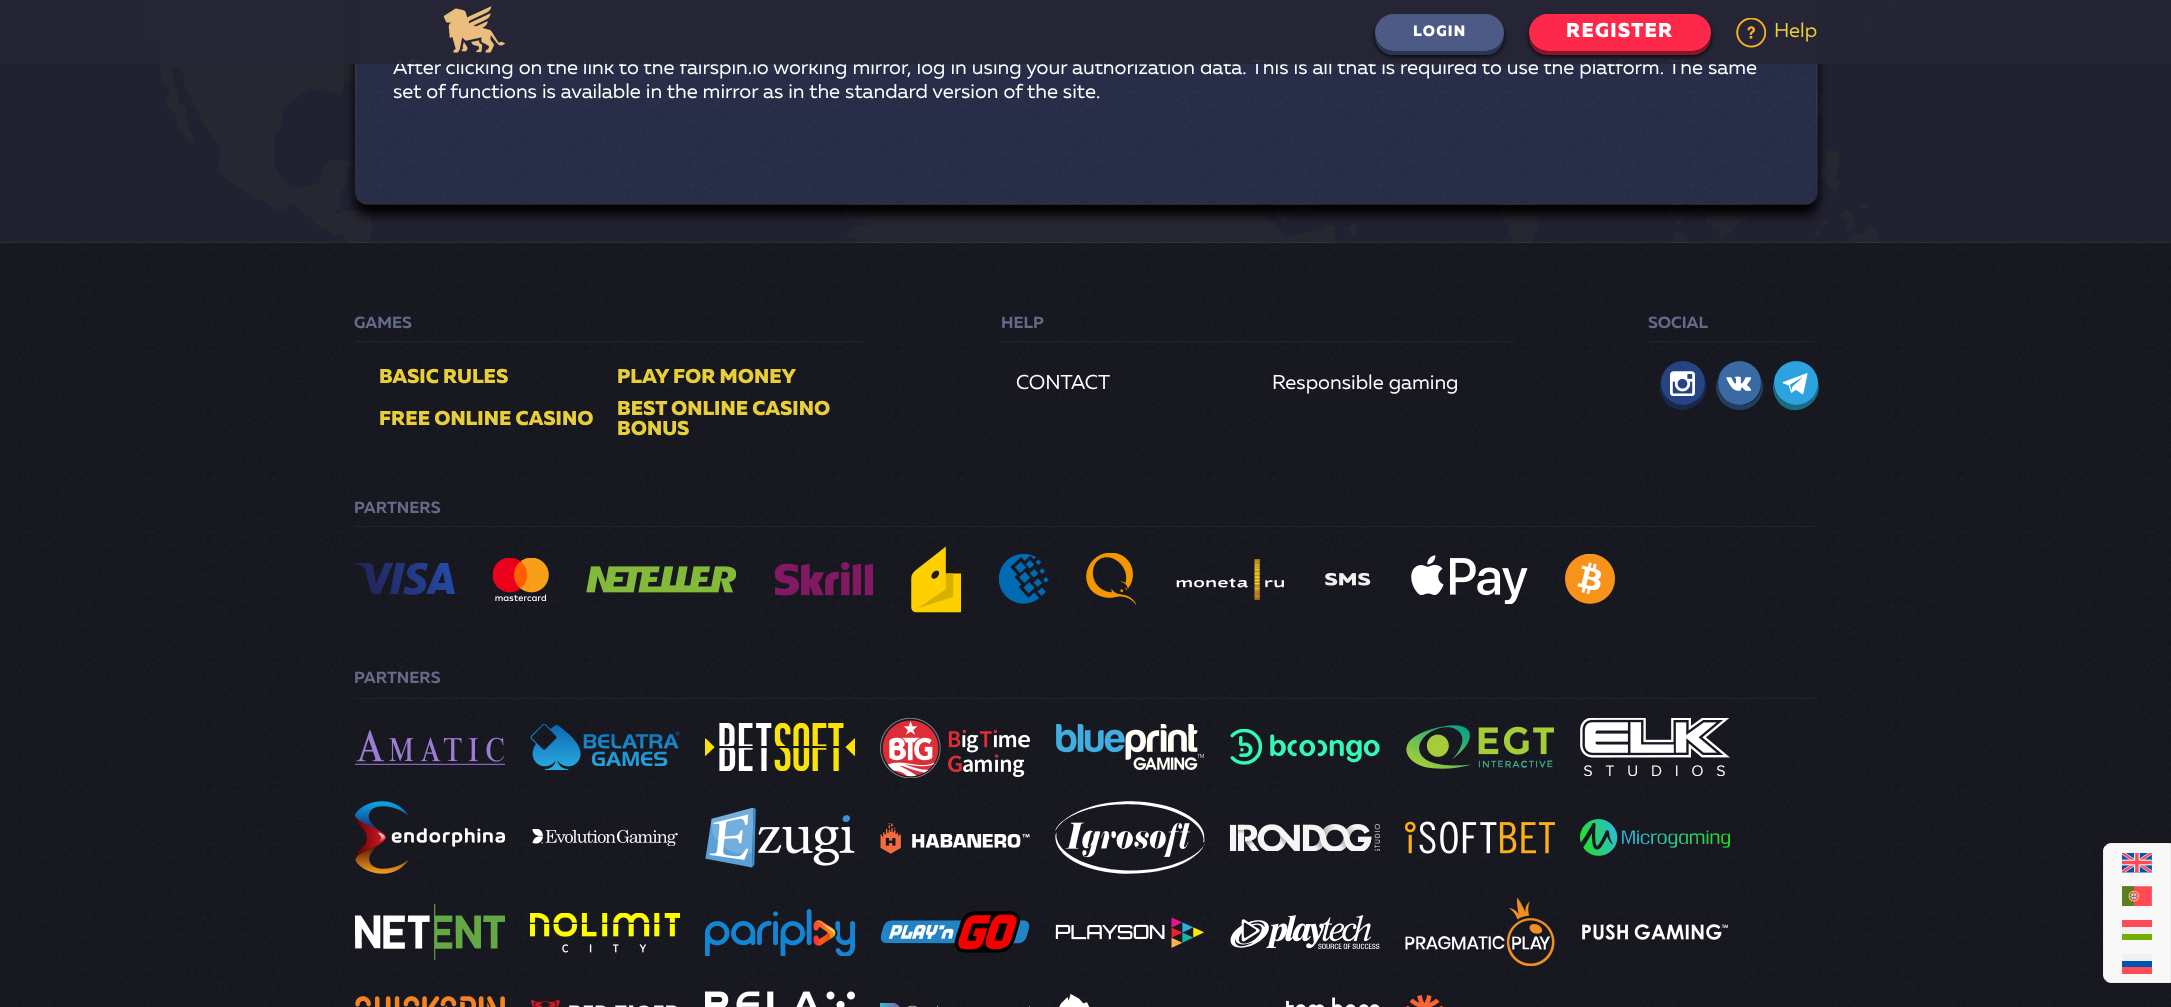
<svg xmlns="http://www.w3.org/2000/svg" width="2171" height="1007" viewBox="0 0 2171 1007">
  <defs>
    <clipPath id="clip1"><path d="M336 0H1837V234H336ZM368-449H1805C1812-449 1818-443 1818-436V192C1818 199 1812 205 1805 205H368C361 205 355 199 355 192V-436C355-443 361-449 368-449Z" clip-rule="evenodd"/></clipPath>
    <filter id="blur1" x="-50%" y="-200%" width="200%" height="500%"><feGaussianBlur stdDeviation="6"/></filter>
    <filter id="blur2" x="-50%" y="-200%" width="200%" height="500%"><feGaussianBlur stdDeviation="2.5"/></filter>
    <clipPath id="clip2"><rect x="355" y="563" width="100" height="32"/></clipPath>
    <linearGradient id="g1" gradientUnits="userSpaceOnUse" x1="364" y1="594" x2="448" y2="563"><stop offset="0" stop-color="#222357"/><stop offset="1" stop-color="#254aa5"/></linearGradient>
  </defs>
  <rect width="100%" height="100%" fill="#212132"/>
  <image x="137" y="0" width="1772" height="243" href="img1.png"/>
  <g clip-path="url(#clip1)">
    <rect x="355" y="-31" width="1463" height="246" rx="13" fill="#000000" filter="url(#blur1)"/>
  </g>
  <image x="355" y="0" width="1463" height="204" href="img4.png"/>
  <text x="393" y="74" font-family="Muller" font-size="20" fill="#ffffff">After clicking on the link to the fairspin.io working mirror, log in using your authorization data. This is all that is required to use the platform. The same</text>
  <rect x="0" y="0" width="2171" height="64" fill="#252536" fill-opacity="0.95"/>
  <image x="443" y="6" width="63" height="47" href="img2.png"/>
  <rect x="1375" y="19" width="129" height="37" rx="18.5" fill="#000000" filter="url(#blur2)"/>
  <path d="M1375 35C1374 44 1381 53 1390 55H1409H1489C1499 53 1505 43 1504 33C1503 43 1495 51 1485 51H1394C1384 51 1376 44 1375 35Z" fill="#2c3552"/>
  <rect x="1375" y="14" width="129" height="37" rx="18.5" fill="#4d5a85"/>
  <text x="1413" y="36" font-family="Muller" font-size="15" font-weight="800" letter-spacing="1.25" fill="#ffffff">LOGIN</text>
  <rect x="1529" y="19" width="182" height="37" rx="18.5" fill="#000000" filter="url(#blur2)"/>
  <path d="M1529 36C1529 47 1537 55 1548 55H1692C1703 55 1711 47 1711 36C1709 45 1702 51 1692 51H1548C1538 51 1531 45 1529 36Z" fill="#871628"/>
  <rect x="1529" y="14" width="182" height="37" rx="18.5" fill="#fe284a"/>
  <text x="1566" y="37" font-family="Muller" font-size="20" font-weight="800" letter-spacing="1.25" fill="#ffffff">REGISTER</text>
  <image x="1736" y="18" width="30" height="30" href="img3.png"/>
  <text x="1774" y="37" font-family="Muller" font-size="20" fill="#e8ce3a">Help</text>
  <text x="393" y="98" font-family="Muller" font-size="20" fill="#ffffff">set of functions is available in the mirror as in the standard version of the site.</text>
  <rect x="0" y="243" width="2171" height="764" fill="#0a0a14"/>
  <image x="0" y="242" width="2171" height="765" href="img5.png"/>
  <rect x="355" y="341" width="511" height="1" fill="#222330"/>
  <text x="354" y="328" font-family="Muller" font-size="16.25" font-weight="bold" fill="#646a87">GAMES</text>
  <text x="379" y="383" font-family="Muller" font-size="20" font-weight="800" fill="#e8ce3a">BASIC RULES</text>
  <text x="617" y="383" font-family="Muller" font-size="20" font-weight="800" fill="#e8ce3a">PLAY FOR MONEY</text>
  <text x="379" y="425" font-family="Muller" font-size="20" font-weight="800" fill="#e8ce3a">FREE ONLINE CASINO</text>
  <text x="617" y="415" font-family="Muller" font-size="20" font-weight="800" fill="#e8ce3a">BEST ONLINE CASINO</text>
  <text x="617" y="435" font-family="Muller" font-size="20" font-weight="800" fill="#e8ce3a">BONUS</text>
  <rect x="1001" y="341" width="513" height="1" fill="#222330"/>
  <text x="1001" y="328" font-family="Muller" font-size="16.25" font-weight="bold" fill="#646a87">HELP</text>
  <text x="1016" y="389" font-family="Muller" font-size="20" fill="#ffffff">CONTACT</text>
  <text x="1272" y="389" font-family="Muller" font-size="20" fill="#ffffff">Responsible gaming</text>
  <rect x="1649" y="341" width="169" height="1" fill="#222330"/>
  <text x="1648" y="328" font-family="Muller" font-size="16.25" font-weight="bold" fill="#646a87">SOCIAL</text>
  <path d="M1662 378C1659 384 1659 390 1662 396C1673 423 1714 407 1705 379C1706 385 1704 391 1701 395C1688 416 1656 401 1662 378Z" fill="#16284d"/>
  <circle cx="1683" cy="383" r="22" fill="#264484"/>
  <image x="1670" y="371" width="25" height="25" href="img6.png"/>
  <path d="M1719 377C1715 383 1715 390 1718 396C1720 401 1725 406 1730 408C1751 417 1771 395 1760 375C1762 381 1762 386 1760 392C1749 417 1710 403 1719 377Z" fill="#223f61"/>
  <rect x="1718" y="361" width="43" height="44" rx="21.5" fill="#3a6aa3"/>
  <image x="1726" y="376" width="25" height="15" href="img7.png"/>
  <path d="M1774 381C1772 387 1773 394 1777 400C1793 424 1829 401 1816 377C1824 400 1792 416 1777 395C1775 391 1773 386 1774 381Z" fill="#1a6b84"/>
  <circle cx="1796" cy="383" r="22" fill="#2ca3df"/>
  <image x="1783" y="373" width="25" height="22" href="img8.png"/>
  <rect x="355" y="526" width="1463" height="1" fill="#222330"/>
  <text x="354" y="513" font-family="Muller" font-size="16.25" font-weight="bold" fill="#646a87">PARTNERS</text>
  <g clip-path="url(#clip2)">
    <path d="M407 573C407 563 420 561 428 564L426 571C423 569 420 569 418 569C416 570 415 571 415 572C415 573 417 574 419 575C422 577 426 579 426 584C426 591 421 595 412 595C409 595 405 594 403 593L405 586L410 588C412 588 415 589 417 587C421 584 411 580 409 578C408 577 407 575 407 573ZM385 563H393L380 594H372L367 578C365 567 366 566 355 564V563H369C371 563 372 564 373 566L376 584ZM396 563H405L398 594H390ZM441 563H448L455 594H447L446 590H436L434 594H426L438 566C439 564 440 563 441 563ZM443 572L438 583H445Z" fill="url(#g1)" fill-rule="evenodd"/>
  </g>
  <image x="493" y="558" width="56" height="43" href="img9.png"/>
  <image x="586" y="566" width="150" height="27" href="img10.png"/>
  <image x="774" y="562" width="99" height="34" href="img11.png"/>
  <image x="911" y="546" width="50" height="67" href="img12.png"/>
  <image x="999" y="554" width="50" height="50" href="img13.png"/>
  <image x="1086" y="553" width="50" height="52" href="img14.png"/>
  <image x="1176" y="559" width="108" height="41" href="img15.png"/>
  <image x="1325" y="572" width="46" height="14" href="img16.png"/>
  <image x="1411" y="555" width="117" height="49" href="img17.png"/>
  <image x="1565" y="554" width="50" height="50" href="img18.png"/>
  <rect x="355" y="698" width="1463" height="1" fill="#222330"/>
  <text x="354" y="683" font-family="Muller" font-size="16.25" font-weight="bold" fill="#646a87">PARTNERS</text>
  <image x="355" y="730" width="150" height="35" href="img19.png"/>
  <image x="530" y="724" width="150" height="46" href="img20.png"/>
  <image x="705" y="723" width="150" height="48" href="img21.png"/>
  <image x="880" y="718" width="150" height="60" href="img22.png"/>
  <image x="1056" y="724" width="148" height="46" href="img23.png"/>
  <image x="1230" y="729" width="150" height="36" href="img24.png"/>
  <image x="1406" y="725" width="149" height="44" href="img25.png"/>
  <image x="1580" y="718" width="150" height="58" href="img26.png"/>
  <image x="355" y="801" width="150" height="73" href="img27.png"/>
  <image x="532" y="829" width="146" height="17" href="img28.png"/>
  <image x="705" y="808" width="150" height="60" href="img29.png"/>
  <image x="880" y="823" width="150" height="31" href="img30.png"/>
  <image x="1055" y="801" width="150" height="73" href="img31.png"/>
  <image x="1230" y="824" width="150" height="27" href="img32.png"/>
  <image x="1405" y="821" width="150" height="33" href="img33.png"/>
  <image x="1580" y="819" width="150" height="37" href="img34.png"/>
  <image x="355" y="904" width="150" height="56" href="img35.png"/>
  <image x="530" y="913" width="150" height="40" href="img36.png"/>
  <image x="705" y="909" width="150" height="47" href="img37.png"/>
  <image x="880" y="911" width="150" height="42" href="img38.png"/>
  <image x="1055" y="917" width="149" height="31" href="img39.png"/>
  <image x="1230" y="915" width="150" height="34" href="img40.png"/>
  <image x="1405" y="898" width="150" height="68" href="img41.png"/>
  <image x="1582" y="924" width="147" height="16" href="img42.png"/>
  <image x="355" y="996" width="150" height="11" href="img43.png"/>
  <image x="531" y="1000" width="146" height="7" href="img44.png"/>
  <image x="705" y="991" width="150" height="16" href="img45.png"/>
  <image x="880" y="1003" width="150" height="4" href="img46.png"/>
  <image x="1059" y="994" width="31" height="13" href="img47.png"/>
  <image x="1286" y="997" width="94" height="10" href="img48.png"/>
  <image x="1406" y="995" width="37" height="12" href="img49.png"/>
  <path d="M2111 843.5H2170.5V982.5H2111C2107 982.5 2103.5 979 2103.5 975V851C2103.5 847 2107 843.5 2111 843.5Z" fill="#f8f8f8" stroke="#eeeeee"/>
  <image x="2122" y="853" width="30" height="20" href="img50.png"/>
  <image x="2122" y="886" width="30" height="20" href="img51.png"/>
  <rect x="2122" y="920" width="30" height="7" fill="#ff4b55"/>
  <rect x="2122" y="927" width="30" height="7" fill="#f0f0f0"/>
  <rect x="2122" y="934" width="30" height="6" fill="#73af00"/>
  <rect x="2122" y="954" width="30" height="7" fill="#f0f0f0"/>
  <rect x="2122" y="961" width="30" height="6" fill="#0052b4"/>
  <rect x="2122" y="967" width="30" height="7" fill="#ff4b55"/>
</svg>
